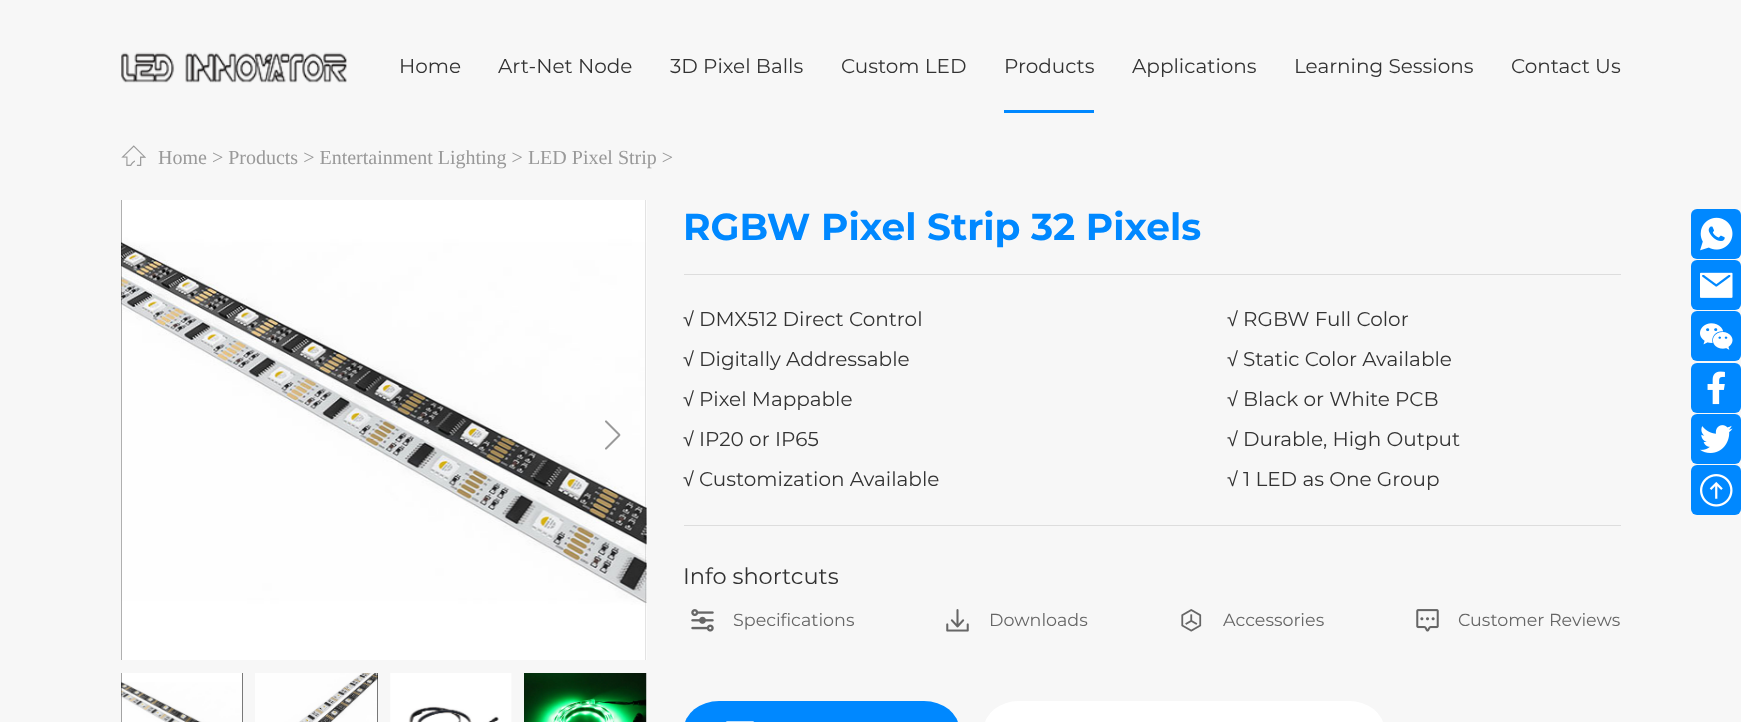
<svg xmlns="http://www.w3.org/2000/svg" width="1741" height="722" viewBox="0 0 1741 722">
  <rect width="100%" height="100%" fill="#f7f7f7"/>
  <image x="121" y="52" width="226" height="31" href="img1.png"/>
  <text x="399" y="73" font-family="Montserrat" font-size="20" fill="#333333">Home</text>
  <text x="498" y="73" font-family="Montserrat" font-size="20" fill="#333333">Art-Net Node</text>
  <text x="670" y="73" font-family="Montserrat" font-size="20" fill="#333333">3D Pixel Balls</text>
  <text x="841" y="73" font-family="Montserrat" font-size="20" fill="#333333">Custom LED</text>
  <text x="1004" y="73" font-family="Montserrat" font-size="20" fill="#333333">Products</text>
  <rect x="1004" y="110" width="90" height="3" fill="#0088ff"/>
  <text x="1132" y="73" font-family="Montserrat" font-size="20" fill="#333333">Applications</text>
  <text x="1294" y="73" font-family="Montserrat" font-size="20" fill="#333333">Learning Sessions</text>
  <text x="1511" y="73" font-family="Montserrat" font-size="20" fill="#333333">Contact Us</text>
  <image x="121" y="145" width="25" height="21" href="img2.png"/>
  <text x="158" y="164" font-family="Liberation Serif" font-size="20" fill="#999999">Home &gt; Products &gt; Entertainment Lighting &gt; LED Pixel Strip &gt;</text>
  <rect x="121" y="200" width="525" height="460" fill="#000000"/>
  <image x="121" y="200" width="526" height="460" href="img3.png"/>
  <image x="605" y="420" width="16" height="30" href="img4.png"/>
  <rect x="121" y="673" width="122" height="49" fill="#000000"/>
  <image x="121" y="673" width="122" height="49" href="img5.png"/>
  <rect x="377" y="673" width="1" height="49" fill="#000000"/>
  <image x="255" y="673" width="123" height="49" href="img6.png"/>
  <image x="390" y="673" width="122" height="49" href="img7.png"/>
  <image x="524" y="673" width="123" height="49" href="img8.png"/>
  <text x="683" y="240" font-family="Montserrat" font-size="37.5" font-weight="bold" fill="#0088ff">RGBW Pixel Strip 32 Pixels</text>
  <rect x="684" y="274" width="937" height="1" fill="#dddddd"/>
  <rect x="684" y="525" width="937" height="1" fill="#dddddd"/>
  <text x="683" y="326" font-family="Liberation Sans" font-size="20" fill="#333333">√</text>
  <text x="699" y="326" font-family="Montserrat" font-size="20" fill="#333333">DMX512 Direct Control</text>
  <text x="1227" y="326" font-family="Liberation Sans" font-size="20" fill="#333333">√</text>
  <text x="1243" y="326" font-family="Montserrat" font-size="20" fill="#333333">RGBW Full Color</text>
  <text x="683" y="366" font-family="Liberation Sans" font-size="20" fill="#333333">√</text>
  <text x="699" y="366" font-family="Montserrat" font-size="20" fill="#333333">Digitally Addressable</text>
  <text x="1227" y="366" font-family="Liberation Sans" font-size="20" fill="#333333">√</text>
  <text x="1243" y="366" font-family="Montserrat" font-size="20" fill="#333333">Static Color Available</text>
  <text x="683" y="406" font-family="Liberation Sans" font-size="20" fill="#333333">√</text>
  <text x="699" y="406" font-family="Montserrat" font-size="20" fill="#333333">Pixel Mappable</text>
  <text x="1227" y="406" font-family="Liberation Sans" font-size="20" fill="#333333">√</text>
  <text x="1243" y="406" font-family="Montserrat" font-size="20" fill="#333333">Black or White PCB</text>
  <text x="683" y="446" font-family="Liberation Sans" font-size="20" fill="#333333">√</text>
  <text x="699" y="446" font-family="Montserrat" font-size="20" fill="#333333">IP20 or IP65</text>
  <text x="1227" y="446" font-family="Liberation Sans" font-size="20" fill="#333333">√</text>
  <text x="1243" y="446" font-family="Montserrat" font-size="20" fill="#333333">Durable, High Output</text>
  <text x="683" y="486" font-family="Liberation Sans" font-size="20" fill="#333333">√</text>
  <text x="699" y="486" font-family="Montserrat" font-size="20" fill="#333333">Customization Available</text>
  <text x="1227" y="486" font-family="Liberation Sans" font-size="20" fill="#333333">√</text>
  <text x="1243" y="486" font-family="Montserrat" font-size="20" fill="#333333">1 LED as One Group</text>
  <text x="683" y="584" font-family="Montserrat" font-size="22.5" fill="#333333">Info shortcuts</text>
  <image x="691" y="609" width="23" height="23" href="img9.png"/>
  <text x="733" y="626" font-family="Montserrat" font-size="17.5" fill="#666666">Specifications</text>
  <image x="946" y="609" width="23" height="23" href="img10.png"/>
  <text x="989" y="626" font-family="Montserrat" font-size="17.5" fill="#666666">Downloads</text>
  <image x="1181" y="609" width="21" height="23" href="img11.png"/>
  <text x="1223" y="626" font-family="Montserrat" font-size="17.5" fill="#666666">Accessories</text>
  <image x="1416" y="609" width="23" height="23" href="img12.png"/>
  <text x="1458" y="626" font-family="Montserrat" font-size="17.5" fill="#666666">Customer Reviews</text>
  <rect x="684" y="701" width="275" height="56" rx="35" fill="#0088ff"/>
  <image x="725" y="721" width="30" height="1" href="img13.png"/>
  <rect x="984" y="701" width="400" height="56" rx="35" fill="#ffffff"/>
  <rect x="1691" y="209" width="50" height="50" rx="6" fill="#0088ff"/>
  <image x="1700" y="217" width="33" height="34" href="img14.png"/>
  <rect x="1691" y="260" width="50" height="50" rx="6" fill="#0088ff"/>
  <image x="1700" y="272" width="33" height="26" href="img15.png"/>
  <rect x="1691" y="311" width="50" height="50" rx="6" fill="#0088ff"/>
  <image x="1700" y="323" width="33" height="27" href="img16.png"/>
  <rect x="1691" y="363" width="50" height="50" rx="6" fill="#0088ff"/>
  <image x="1707" y="371" width="18" height="34" href="img17.png"/>
  <rect x="1691" y="414" width="50" height="50" rx="6" fill="#0088ff"/>
  <image x="1700" y="425" width="33" height="28" href="img18.png"/>
  <rect x="1691" y="465" width="50" height="50" rx="6" fill="#0088ff"/>
  <image x="1700" y="474" width="33" height="33" href="img19.png"/>
</svg>
